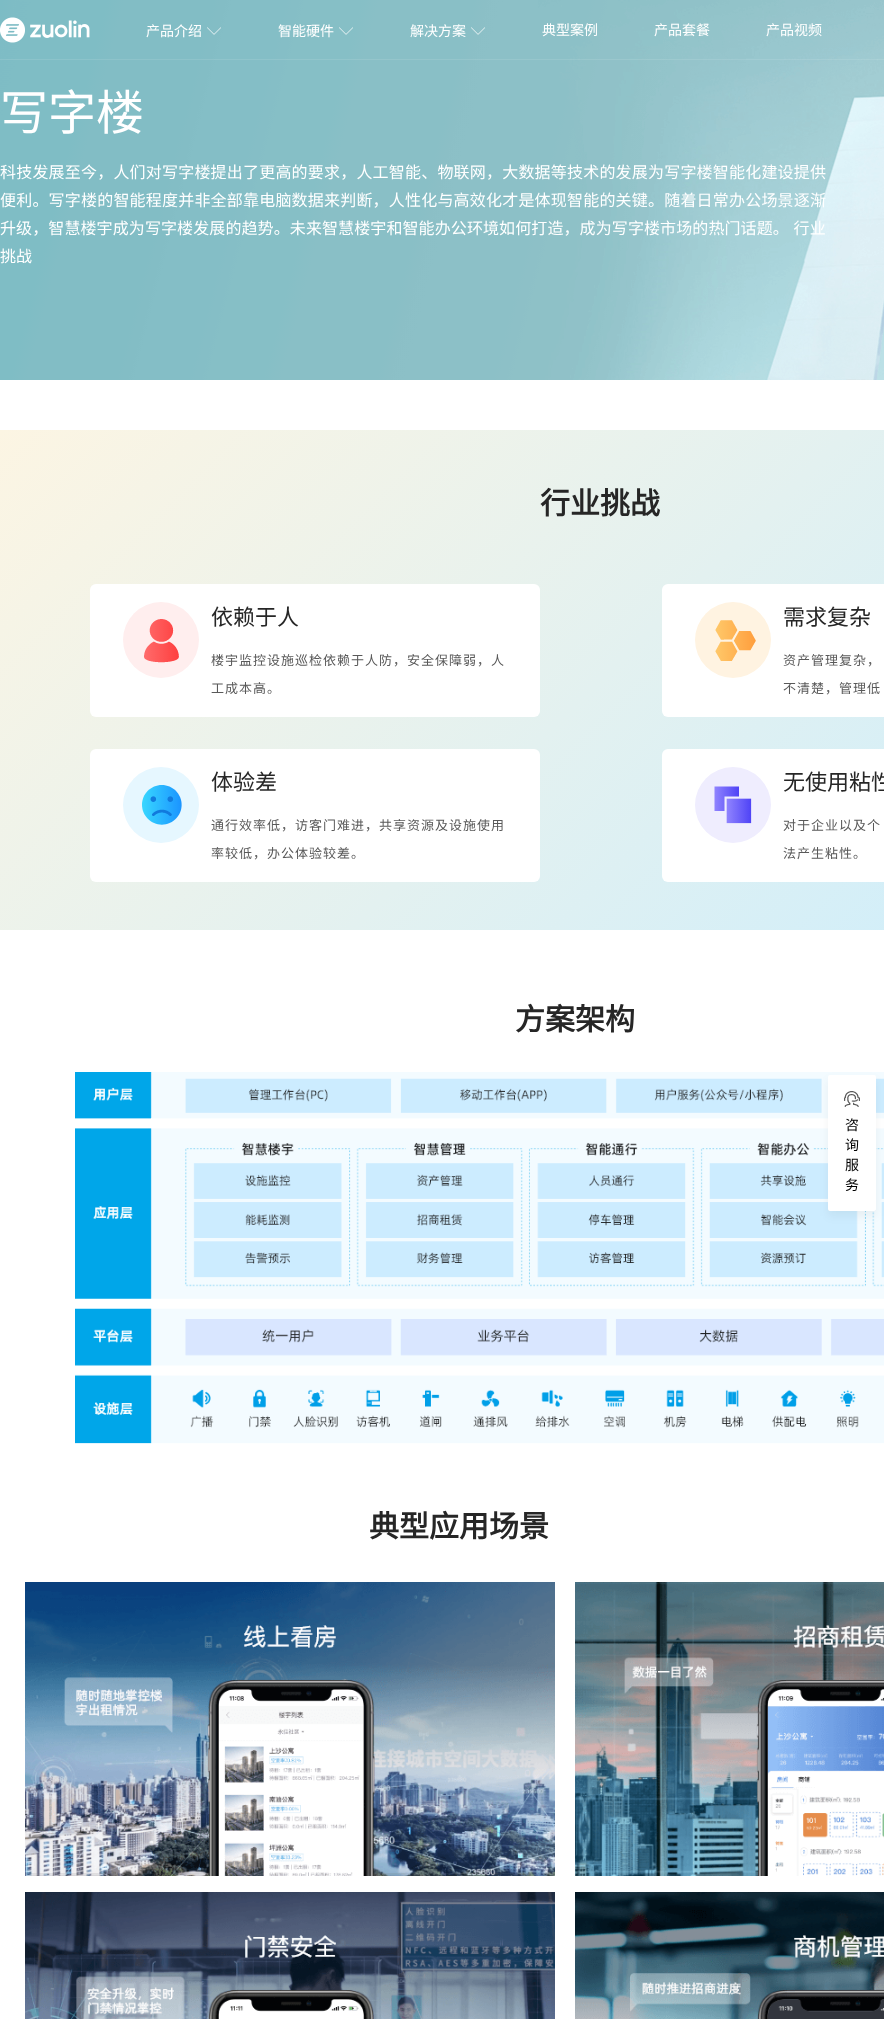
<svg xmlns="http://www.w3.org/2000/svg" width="884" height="2019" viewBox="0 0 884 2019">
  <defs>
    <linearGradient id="g1" gradientUnits="userSpaceOnUse" x1="175" y1="255" x2="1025" y2="1105"><stop offset="0" stop-color="#fcf5e3"/><stop offset="1" stop-color="#caedfd"/></linearGradient>
    <filter id="blur1" x="-50%" y="-200%" width="200%" height="500%"><feGaussianBlur stdDeviation="5"/></filter>
  </defs>
  <rect width="100%" height="100%" fill="#ffffff"/>
  <image x="0" y="0" width="884" height="380" href="img5.png"/>
  <rect x="0" y="59" width="884" height="1" fill="#ffffff" fill-opacity="0.1"/>
  <image x="0" y="17" width="90" height="26" href="img1.png"/>
  <text x="146" y="36" font-family="Noto Sans CJK SC" font-size="14" fill="#ffffff">产品介绍</text>
  <image x="207" y="27" width="14" height="8" href="img2.png"/>
  <text x="278" y="36" font-family="Noto Sans CJK SC" font-size="14" fill="#ffffff">智能硬件</text>
  <image x="339" y="27" width="14" height="8" href="img3.png"/>
  <text x="410" y="36" font-family="Noto Sans CJK SC" font-size="14" fill="#ffffff">解决方案</text>
  <image x="471" y="27" width="14" height="8" href="img4.png"/>
  <text x="542" y="35" font-family="Noto Sans CJK SC" font-size="14" fill="#ffffff">典型案例</text>
  <text x="654" y="35" font-family="Noto Sans CJK SC" font-size="14" fill="#ffffff">产品套餐</text>
  <text x="766" y="35" font-family="Noto Sans CJK SC" font-size="14" fill="#ffffff">产品视频</text>
  <text x="0" y="130" font-family="Noto Sans CJK SC" font-size="48" fill="#ffffff">写字楼</text>
  <text x="0" y="178" font-family="Noto Sans CJK SC" font-size="16" letter-spacing="0.2" fill="#ffffff">科技发展至今，人们对写字楼提出了更高的要求，人工智能、物联网，大数据等技术的发展为写字楼智能化建设提供</text>
  <text x="0" y="206" font-family="Noto Sans CJK SC" font-size="16" letter-spacing="0.2" fill="#ffffff">便利。写字楼的智能程度并非全部靠电脑数据来判断，人性化与高效化才是体现智能的关键。随着日常办公场景逐渐</text>
  <text x="0" y="234" word-spacing="1" font-family="Noto Sans CJK SC" font-size="16" letter-spacing="0.1" fill="#ffffff">升级，智慧楼宇成为写字楼发展的趋势。未来智慧楼宇和智能办公环境如何打造，成为写字楼市场的热门话题。 行业</text>
  <text x="0" y="262" font-family="Noto Sans CJK SC" font-size="16" fill="#ffffff">挑战</text>
  <rect x="0" y="430" width="884" height="500" fill="url(#g1)"/>
  <text x="540" y="514" font-family="Noto Sans CJK SC" font-size="30" font-weight="bold" fill="#262626">行业挑战</text>
  <rect x="90" y="584" width="450" height="133" rx="6" fill="#ffffff"/>
  <image x="123" y="602" width="76" height="76" href="img6.png"/>
  <text x="211" y="625" font-family="Noto Sans CJK SC" font-size="22" fill="#262626">依赖于人</text>
  <text x="211" y="665" font-family="Noto Sans CJK SC" font-size="13" letter-spacing="1" fill="#595959">楼宇监控设施巡检依赖于人防，安全保障弱，人</text>
  <text x="211" y="693" font-family="Noto Sans CJK SC" font-size="13" letter-spacing="1" fill="#595959">工成本高。</text>
  <rect x="662" y="584" width="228" height="133" rx="6" fill="#ffffff"/>
  <image x="695" y="602" width="76" height="76" href="img7.png"/>
  <text x="783" y="625" font-family="Noto Sans CJK SC" font-size="22" fill="#262626">需求复杂</text>
  <text x="783" y="665" font-family="Noto Sans CJK SC" font-size="13" letter-spacing="1" fill="#595959">资产管理复杂，</text>
  <text x="783" y="693" font-family="Noto Sans CJK SC" font-size="13" letter-spacing="1" fill="#595959">不清楚，管理低</text>
  <rect x="90" y="749" width="450" height="133" rx="6" fill="#ffffff"/>
  <image x="123" y="767" width="76" height="76" href="img8.png"/>
  <text x="211" y="790" font-family="Noto Sans CJK SC" font-size="22" fill="#262626">体验差</text>
  <text x="211" y="830" font-family="Noto Sans CJK SC" font-size="13" letter-spacing="1" fill="#595959">通行效率低，访客门难进，共享资源及设施使用</text>
  <text x="211" y="858" font-family="Noto Sans CJK SC" font-size="13" letter-spacing="1" fill="#595959">率较低，办公体验较差。</text>
  <rect x="662" y="749" width="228" height="133" rx="6" fill="#ffffff"/>
  <image x="695" y="767" width="76" height="76" href="img9.png"/>
  <text x="783" y="790" font-family="Noto Sans CJK SC" font-size="22" fill="#262626">无使用粘性</text>
  <text x="783" y="830" font-family="Noto Sans CJK SC" font-size="13" letter-spacing="1" fill="#595959">对于企业以及个</text>
  <text x="783" y="858" font-family="Noto Sans CJK SC" font-size="13" letter-spacing="1" fill="#595959">法产生粘性。</text>
  <text x="515" y="1030" font-family="Noto Sans CJK SC" font-size="30" font-weight="bold" fill="#262626">方案架构</text>
  <image x="75" y="1072" width="809" height="372" href="img10.png"/>
  <rect x="828" y="1080" width="48" height="136" fill="#000000" fill-opacity="0.05" filter="url(#blur1)"/>
  <image x="828" y="1075" width="48" height="136" href="img11.png"/>
  <text x="845" y="1130" font-family="Noto Sans CJK SC" font-size="14" fill="#000000">咨</text>
  <text x="845" y="1150" font-family="Noto Sans CJK SC" font-size="14" fill="#000000">询</text>
  <text x="845" y="1170" font-family="Noto Sans CJK SC" font-size="14" fill="#000000">服</text>
  <text x="845" y="1190" font-family="Noto Sans CJK SC" font-size="14" fill="#000000">务</text>
  <text x="369" y="1537" font-family="Noto Sans CJK SC" font-size="30" font-weight="bold" fill="#262626">典型应用场景</text>
  <image x="25" y="1582" width="530" height="294" href="img12.png"/>
  <image x="575" y="1582" width="309" height="294" href="img13.png"/>
  <image x="25" y="1892" width="530" height="127" href="img14.png"/>
  <image x="575" y="1892" width="309" height="127" href="img15.png"/>
</svg>
